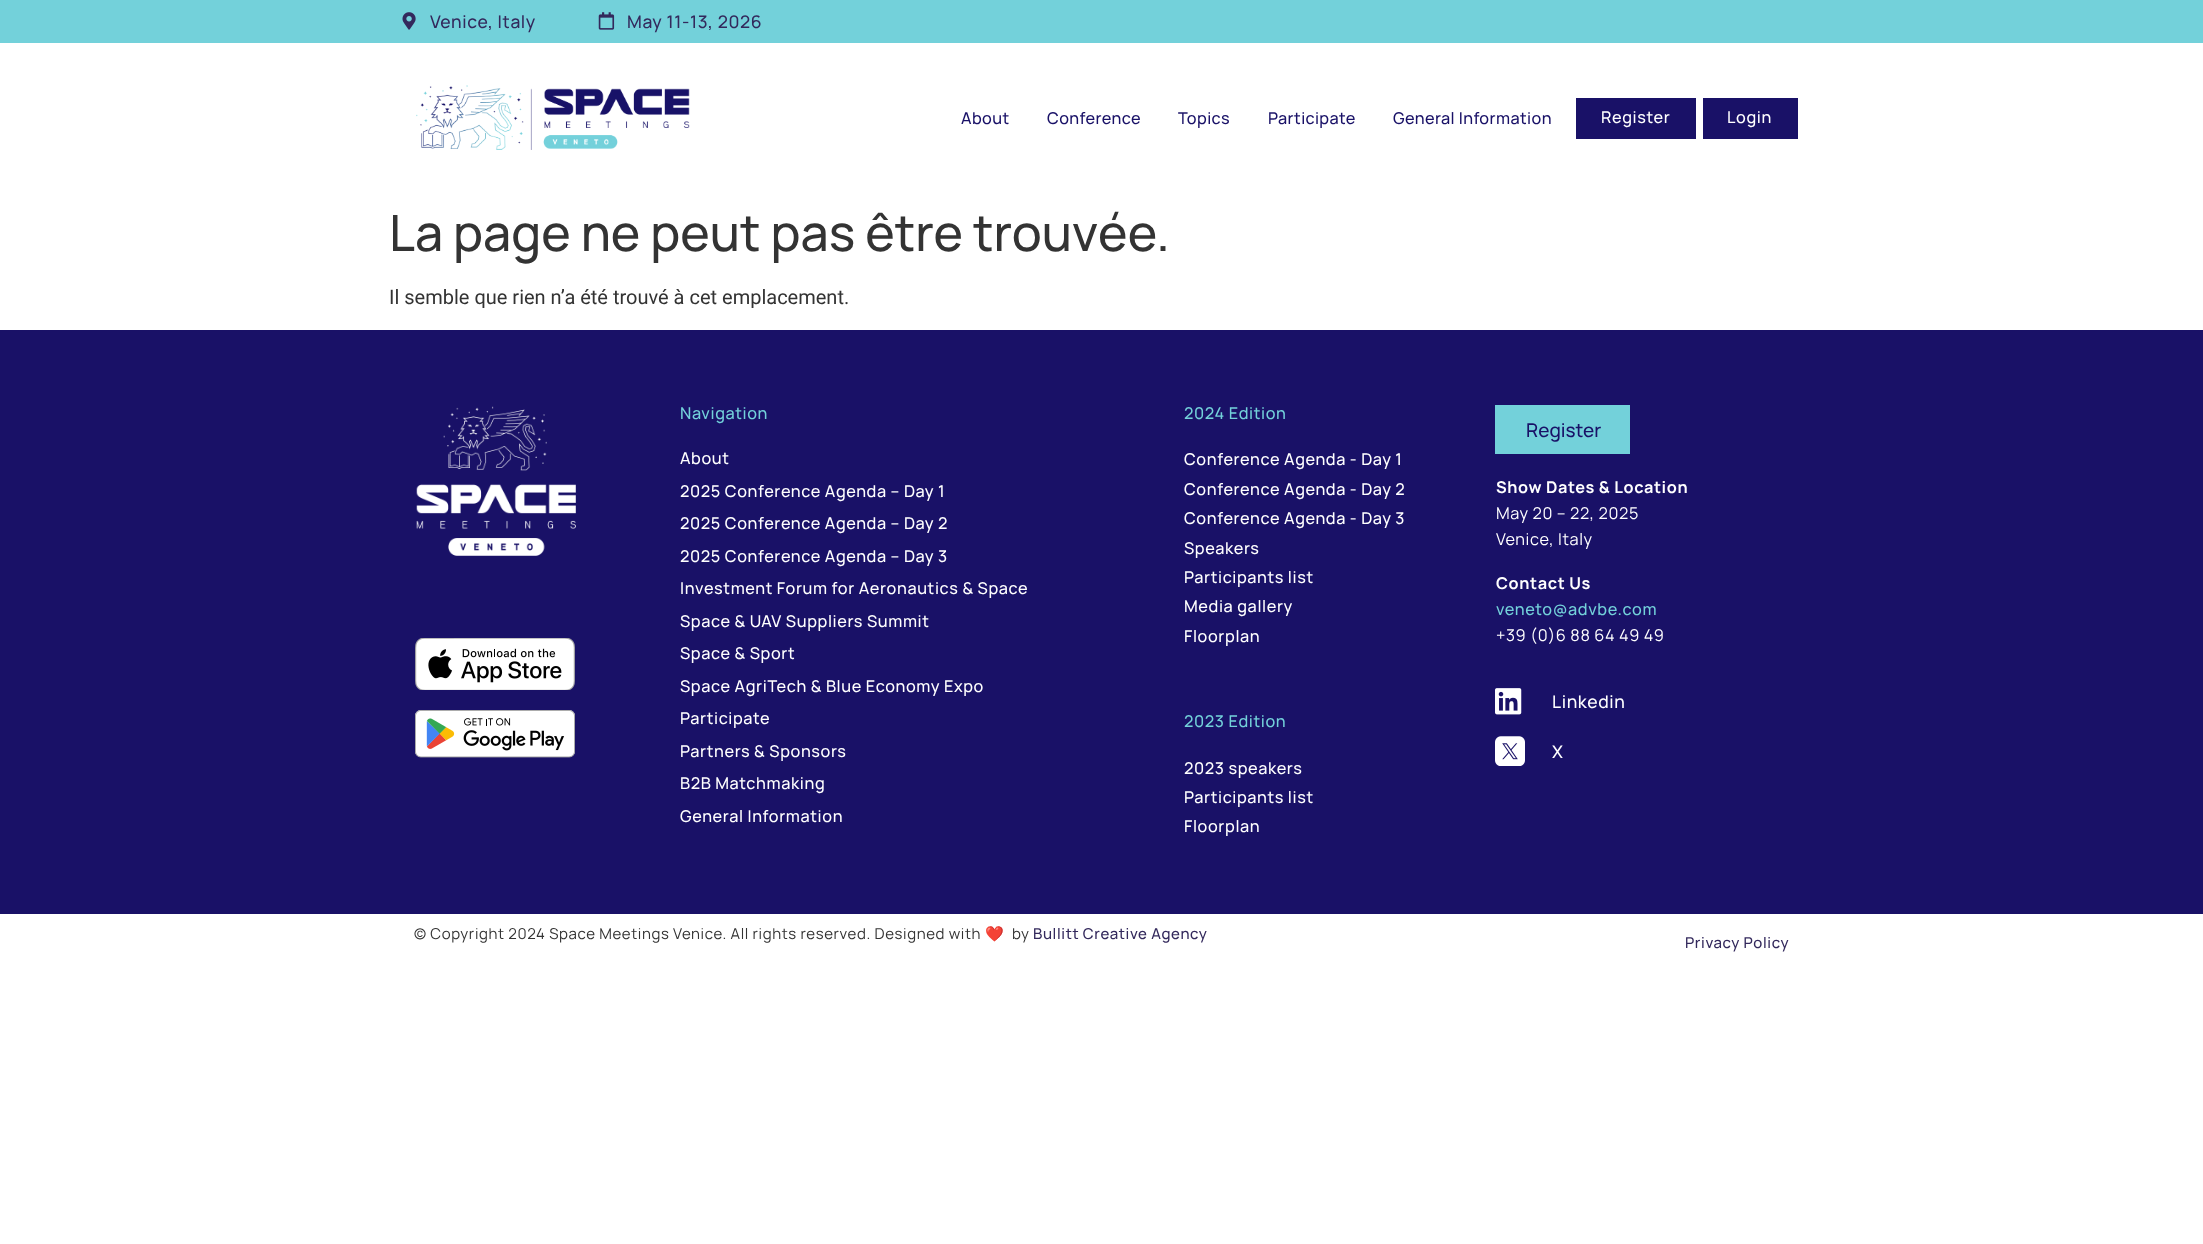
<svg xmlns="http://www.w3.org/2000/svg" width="2203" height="1244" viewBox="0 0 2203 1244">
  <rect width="100%" height="100%" fill="#ffffff"/>
  <rect x="0" y="0" width="2203" height="43" fill="#73d1da"/>
  <image x="402" y="12" width="14" height="18" href="img1.png"/>
  <text x="430" y="28" font-family="Manrope" font-size="17.5" font-weight="500" letter-spacing="0.62" fill="#33295c">Venice, Italy</text>
  <image x="598" y="12" width="17" height="18" href="img2.png"/>
  <text x="627" y="28" font-family="Manrope" font-size="17.5" font-weight="500" letter-spacing="0.62" fill="#33295c">May 11-13, 2026</text>
  <image x="416" y="85" width="274" height="65" href="img3.png"/>
  <text x="961" y="124" font-family="Manrope" font-size="16.25" font-weight="500" letter-spacing="0.4" fill="#191167">About</text>
  <text x="1047" y="124" font-family="Manrope" font-size="16.25" font-weight="500" letter-spacing="0.4" fill="#191167">Conference</text>
  <text x="1178" y="124" font-family="Manrope" font-size="16.25" font-weight="500" letter-spacing="0.4" fill="#191167">Topics</text>
  <text x="1268" y="124" font-family="Manrope" font-size="16.25" font-weight="500" letter-spacing="0.4" fill="#191167">Participate</text>
  <text x="1393" y="124" font-family="Manrope" font-size="16.25" font-weight="500" letter-spacing="0.4" fill="#191167">General Information</text>
  <rect x="1576" y="98" width="120" height="41" fill="#191167"/>
  <text x="1601" y="123" font-family="Manrope" font-size="16.25" font-weight="500" letter-spacing="0.62" fill="#ffffff">Register</text>
  <rect x="1703" y="98" width="95" height="41" fill="#191167"/>
  <text x="1727" y="123" font-family="Manrope" font-size="16.25" font-weight="500" letter-spacing="0.62" fill="#ffffff">Login</text>
  <text x="389" y="251" font-family="Manrope" font-size="50" font-weight="500" fill="#333333">La page ne peut pas être trouvée.</text>
  <text x="389" y="304" font-family="Roboto" font-size="20" fill="#333333">Il semble que rien n’a été trouvé à cet emplacement.</text>
  <rect x="0" y="330" width="2203" height="584" fill="#191167"/>
  <image x="416" y="406" width="160" height="150" href="img4.png"/>
  <image x="415" y="638" width="160" height="52" href="img5.png"/>
  <image x="415" y="710" width="160" height="48" href="img6.png"/>
  <text x="680" y="419" font-family="Manrope" font-size="16.25" font-weight="500" letter-spacing="0.62" fill="#73d1da">Navigation</text>
  <text x="680" y="464" font-family="Manrope" font-size="16.25" font-weight="500" letter-spacing="0.62" fill="#ffffff">About</text>
  <text x="680" y="497" font-family="Manrope" font-size="16.25" font-weight="500" letter-spacing="0.62" fill="#ffffff">2025 Conference Agenda – Day 1</text>
  <text x="680" y="529" font-family="Manrope" font-size="16.25" font-weight="500" letter-spacing="0.62" fill="#ffffff">2025 Conference Agenda – Day 2</text>
  <text x="680" y="562" font-family="Manrope" font-size="16.25" font-weight="500" letter-spacing="0.62" fill="#ffffff">2025 Conference Agenda – Day 3</text>
  <text x="680" y="594" font-family="Manrope" font-size="16.25" font-weight="500" letter-spacing="0.62" fill="#ffffff">Investment Forum for Aeronautics &amp; Space</text>
  <text x="680" y="627" font-family="Manrope" font-size="16.25" font-weight="500" letter-spacing="0.62" fill="#ffffff">Space &amp; UAV Suppliers Summit</text>
  <text x="680" y="659" font-family="Manrope" font-size="16.25" font-weight="500" letter-spacing="0.62" fill="#ffffff">Space &amp; Sport</text>
  <text x="680" y="692" font-family="Manrope" font-size="16.25" font-weight="500" letter-spacing="0.62" fill="#ffffff">Space AgriTech &amp; Blue Economy Expo</text>
  <text x="680" y="724" font-family="Manrope" font-size="16.25" font-weight="500" letter-spacing="0.62" fill="#ffffff">Participate</text>
  <text x="680" y="757" font-family="Manrope" font-size="16.25" font-weight="500" letter-spacing="0.62" fill="#ffffff">Partners &amp; Sponsors</text>
  <text x="680" y="789" font-family="Manrope" font-size="16.25" font-weight="500" letter-spacing="0.62" fill="#ffffff">B2B Matchmaking</text>
  <text x="680" y="822" font-family="Manrope" font-size="16.25" font-weight="500" letter-spacing="0.62" fill="#ffffff">General Information</text>
  <text x="1184" y="419" font-family="Manrope" font-size="16.25" font-weight="500" letter-spacing="0.62" fill="#73d1da">2024 Edition</text>
  <text x="1184" y="465" font-family="Manrope" font-size="16.25" font-weight="500" letter-spacing="0.62" fill="#ffffff">Conference Agenda - Day 1</text>
  <text x="1184" y="495" font-family="Manrope" font-size="16.25" font-weight="500" letter-spacing="0.62" fill="#ffffff">Conference Agenda - Day 2</text>
  <text x="1184" y="524" font-family="Manrope" font-size="16.25" font-weight="500" letter-spacing="0.62" fill="#ffffff">Conference Agenda - Day 3</text>
  <text x="1184" y="554" font-family="Manrope" font-size="16.25" font-weight="500" letter-spacing="0.62" fill="#ffffff">Speakers</text>
  <text x="1184" y="583" font-family="Manrope" font-size="16.25" font-weight="500" letter-spacing="0.62" fill="#ffffff">Participants list</text>
  <text x="1184" y="612" font-family="Manrope" font-size="16.25" font-weight="500" letter-spacing="0.62" fill="#ffffff">Media gallery</text>
  <text x="1184" y="642" font-family="Manrope" font-size="16.25" font-weight="500" letter-spacing="0.62" fill="#ffffff">Floorplan</text>
  <text x="1184" y="727" font-family="Manrope" font-size="16.25" font-weight="500" letter-spacing="0.62" fill="#73d1da">2023 Edition</text>
  <text x="1184" y="774" font-family="Manrope" font-size="16.25" font-weight="500" letter-spacing="0.62" fill="#ffffff">2023 speakers</text>
  <text x="1184" y="803" font-family="Manrope" font-size="16.25" font-weight="500" letter-spacing="0.62" fill="#ffffff">Participants list</text>
  <text x="1184" y="832" font-family="Manrope" font-size="16.25" font-weight="500" letter-spacing="0.62" fill="#ffffff">Floorplan</text>
  <rect x="1495" y="405" width="135" height="49" fill="#73d1da"/>
  <text x="1526" y="437" font-family="Manrope" font-size="19" font-weight="500" fill="#191167">Register</text>
  <text x="1496" y="493" font-family="Manrope" font-size="16.25" font-weight="bold" letter-spacing="0.62" fill="#ffffff">Show Dates &amp; Location</text>
  <text x="1496" y="519" font-family="Manrope" font-size="16.25" letter-spacing="0.62" fill="#ffffff">May 20 – 22, 2025</text>
  <text x="1496" y="545" font-family="Manrope" font-size="16.25" letter-spacing="0.62" fill="#ffffff">Venice, Italy</text>
  <text x="1496" y="589" font-family="Manrope" font-size="16.25" font-weight="bold" letter-spacing="0.62" fill="#ffffff">Contact Us</text>
  <text x="1496" y="615" font-family="Manrope" font-size="16.25" font-weight="500" letter-spacing="0.62" fill="#73d1da">veneto@advbe.com</text>
  <text x="1496" y="641" font-family="Manrope" font-size="16.25" letter-spacing="0.62" fill="#ffffff">+39 (0)6 88 64 49 49</text>
  <image x="1495" y="688" width="27" height="27" href="img7.png"/>
  <text x="1552" y="708" font-family="Manrope" font-size="17.5" font-weight="500" letter-spacing="0.62" fill="#ffffff">Linkedin</text>
  <image x="1495" y="736" width="30" height="30" href="img8.png"/>
  <text x="1552" y="758" font-family="Manrope" font-size="17.5" font-weight="500" letter-spacing="0.62" fill="#ffffff">X</text>
  <text x="414" y="939" font-family="Manrope" font-size="15" letter-spacing="0.62" fill="#333333">© Copyright 2024 Space Meetings Venice. All rights reserved. Designed with</text>
  <text x="985" y="939" font-family="Noto Color Emoji" font-size="15" letter-spacing="0.62" fill="#33295c">❤️</text>
  <text x="1012" y="939" font-family="Manrope" font-size="15" letter-spacing="0.62" fill="#333333">by</text>
  <text x="1033" y="939" font-family="Manrope" font-size="15" font-weight="500" letter-spacing="0.62" fill="#33295c">Bullitt Creative Agency</text>
  <text x="1685" y="948" font-family="Manrope" font-size="15" font-weight="500" letter-spacing="0.62" fill="#33295c">Privacy Policy</text>
</svg>
